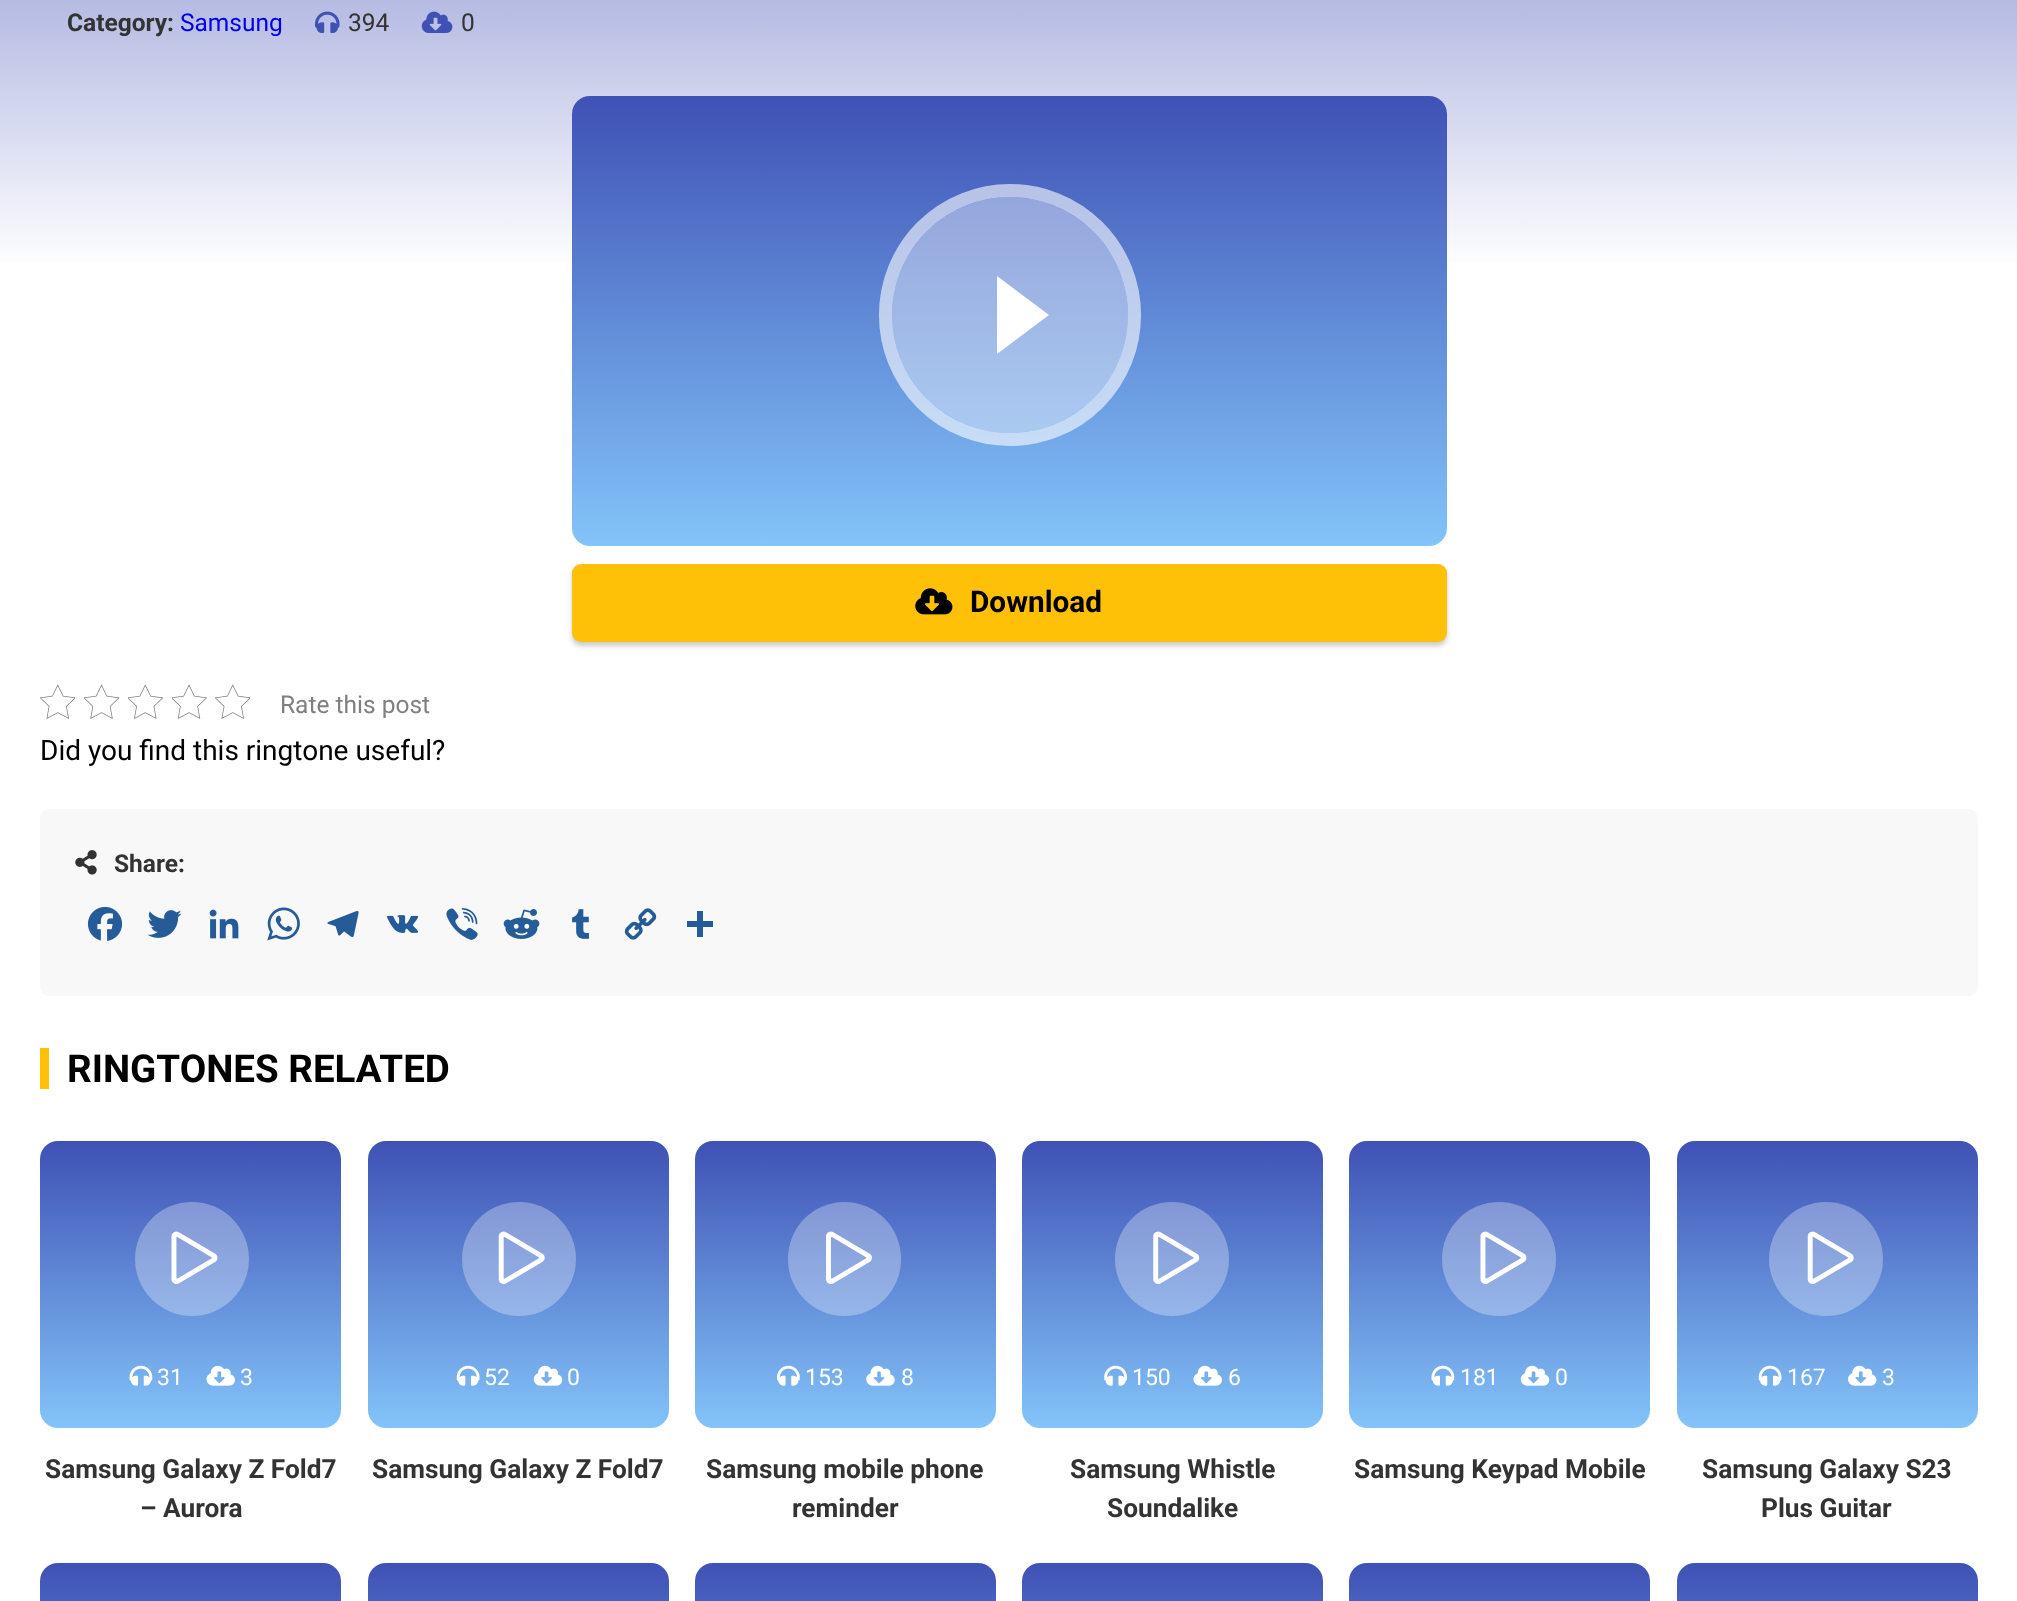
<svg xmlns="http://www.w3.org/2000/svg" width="2017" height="1601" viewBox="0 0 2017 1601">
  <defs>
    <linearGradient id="g1" gradientUnits="userSpaceOnUse" x1="1009" y1="-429" x2="1009" y2="271"><stop offset="0" stop-color="#4050b5"/><stop offset="1" stop-color="#ffffff"/></linearGradient>
    <linearGradient id="g2" gradientUnits="userSpaceOnUse" x1="1010" y1="546" x2="1010" y2="96"><stop offset="0" stop-color="#83c4f9"/><stop offset="1" stop-color="#3f51b5"/></linearGradient>
    <filter id="blur1" x="-50%" y="-200%" width="200%" height="500%"><feGaussianBlur stdDeviation="2.5"/></filter>
    <linearGradient id="g3" gradientUnits="userSpaceOnUse" x1="191" y1="1428" x2="191" y2="1141"><stop offset="0" stop-color="#83c4f9"/><stop offset="1" stop-color="#3f51b5"/></linearGradient>
    <linearGradient id="g4" gradientUnits="userSpaceOnUse" x1="518" y1="1428" x2="518" y2="1141"><stop offset="0" stop-color="#83c4f9"/><stop offset="1" stop-color="#3f51b5"/></linearGradient>
    <linearGradient id="g5" gradientUnits="userSpaceOnUse" x1="845" y1="1428" x2="845" y2="1141"><stop offset="0" stop-color="#83c4f9"/><stop offset="1" stop-color="#3f51b5"/></linearGradient>
    <linearGradient id="g6" gradientUnits="userSpaceOnUse" x1="1173" y1="1428" x2="1173" y2="1141"><stop offset="0" stop-color="#83c4f9"/><stop offset="1" stop-color="#3f51b5"/></linearGradient>
    <linearGradient id="g7" gradientUnits="userSpaceOnUse" x1="1500" y1="1428" x2="1500" y2="1141"><stop offset="0" stop-color="#83c4f9"/><stop offset="1" stop-color="#3f51b5"/></linearGradient>
    <linearGradient id="g8" gradientUnits="userSpaceOnUse" x1="1827" y1="1428" x2="1827" y2="1141"><stop offset="0" stop-color="#83c4f9"/><stop offset="1" stop-color="#3f51b5"/></linearGradient>
    <linearGradient id="g9" gradientUnits="userSpaceOnUse" x1="191" y1="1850" x2="191" y2="1563"><stop offset="0" stop-color="#83c4f9"/><stop offset="1" stop-color="#3f51b5"/></linearGradient>
    <linearGradient id="g10" gradientUnits="userSpaceOnUse" x1="518" y1="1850" x2="518" y2="1563"><stop offset="0" stop-color="#83c4f9"/><stop offset="1" stop-color="#3f51b5"/></linearGradient>
    <linearGradient id="g11" gradientUnits="userSpaceOnUse" x1="845" y1="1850" x2="845" y2="1563"><stop offset="0" stop-color="#83c4f9"/><stop offset="1" stop-color="#3f51b5"/></linearGradient>
    <linearGradient id="g12" gradientUnits="userSpaceOnUse" x1="1173" y1="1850" x2="1173" y2="1563"><stop offset="0" stop-color="#83c4f9"/><stop offset="1" stop-color="#3f51b5"/></linearGradient>
    <linearGradient id="g13" gradientUnits="userSpaceOnUse" x1="1500" y1="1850" x2="1500" y2="1563"><stop offset="0" stop-color="#83c4f9"/><stop offset="1" stop-color="#3f51b5"/></linearGradient>
    <linearGradient id="g14" gradientUnits="userSpaceOnUse" x1="1827" y1="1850" x2="1827" y2="1563"><stop offset="0" stop-color="#83c4f9"/><stop offset="1" stop-color="#3f51b5"/></linearGradient>
  </defs>
  <rect width="100%" height="100%" fill="#ffffff"/>
  <rect x="0" y="0" width="2017" height="262" fill="url(#g1)"/>
  <text x="67" y="31" font-family="Roboto" font-size="24.5" font-weight="bold" fill="#333333">Category:</text>
  <text x="180" y="31" font-family="Roboto" font-size="24.5" fill="#0000ee">Samsung</text>
  <image x="315" y="11" width="25" height="22" href="img1.png"/>
  <text x="348" y="31" font-family="Roboto" font-size="24.5" fill="#333333">394</text>
  <image x="421" y="11" width="32" height="22" href="img2.png"/>
  <text x="461" y="31" font-family="Roboto" font-size="24.5" fill="#333333">0</text>
  <rect x="572" y="96" width="875" height="450" rx="18" fill="url(#g2)"/>
  <circle cx="1010" cy="315" r="124.5" fill="none" stroke="#ffffff" stroke-opacity="0.6" stroke-width="13.1"/>
  <circle cx="1010" cy="315" r="118" fill="#ffffff" fill-opacity="0.4"/>
  <path d="M997 276L1049 315L997 354Z" fill="#ffffff"/>
  <rect x="572" y="567" width="875" height="79" rx="9" fill="#000000" fill-opacity="0.2" filter="url(#blur1)"/>
  <rect x="572" y="564" width="875" height="78" rx="9" fill="#ffc107"/>
  <image x="915" y="588" width="38" height="27" href="img3.png"/>
  <text x="970" y="612" font-family="Roboto" font-size="29.75" font-weight="bold" fill="#000000">Download</text>
  <image x="40" y="684" width="35" height="35" href="img4.png"/>
  <image x="84" y="684" width="35" height="35" href="img5.png"/>
  <image x="128" y="684" width="35" height="35" href="img6.png"/>
  <image x="172" y="684" width="35" height="35" href="img7.png"/>
  <image x="215" y="684" width="35" height="35" href="img4.png"/>
  <text x="280" y="713" font-family="Roboto" font-size="24.5" fill="#808080">Rate this post</text>
  <text x="40" y="760" font-family="Roboto" font-size="28" fill="#000000">Did you find this ringtone useful?</text>
  <rect x="40" y="809" width="1938" height="187" rx="9" fill="#f8f8f8"/>
  <image x="75" y="850" width="22" height="25" href="img8.png"/>
  <text x="114" y="872" font-family="Roboto" font-size="24.5" font-weight="bold" fill="#333333">Share:</text>
  <image x="87" y="906" width="36" height="35" href="img9.png"/>
  <image x="147" y="910" width="35" height="28" href="img10.png"/>
  <image x="209" y="909" width="30" height="30" href="img11.png"/>
  <image x="267" y="907" width="33" height="34" href="img12.png"/>
  <image x="327" y="910" width="32" height="28" href="img13.png"/>
  <image x="386" y="915" width="33" height="18" href="img14.png"/>
  <image x="446" y="908" width="32" height="32" href="img15.png"/>
  <image x="503" y="909" width="37" height="30" href="img16.png"/>
  <image x="572" y="909" width="17" height="30" href="img17.png"/>
  <image x="624" y="908" width="33" height="32" href="img18.png"/>
  <rect x="697" y="911" width="6" height="26" fill="#255c98"/>
  <rect x="687" y="921" width="26" height="6" fill="#255c98"/>
  <rect x="40" y="1048" width="9" height="41" fill="#ffc107"/>
  <text x="67" y="1082" font-family="Roboto" font-size="38.5" font-weight="bold" fill="#000000">RINGTONES RELATED</text>
  <rect x="40" y="1141" width="301" height="287" rx="18" fill="url(#g3)"/>
  <circle cx="192" cy="1259" r="57" fill="#ffffff" fill-opacity="0.3"/>
  <image x="171" y="1231" width="47" height="53" href="img19.png"/>
  <image x="129" y="1365" width="24" height="21" href="img20.png"/>
  <text x="157" y="1385" font-family="Roboto" font-size="23" fill="#ffffff">31</text>
  <image x="206" y="1365" width="29" height="21" href="img21.png"/>
  <text x="240" y="1385" font-family="Roboto" font-size="23" fill="#ffffff">3</text>
  <text x="45" y="1478" font-family="Roboto" font-size="26.25" font-weight="bold" fill="#333333">Samsung Galaxy Z Fold7</text>
  <text x="140" y="1517" font-family="Roboto" font-size="26.25" font-weight="bold" fill="#333333">– Aurora</text>
  <rect x="368" y="1141" width="301" height="287" rx="18" fill="url(#g4)"/>
  <circle cx="519" cy="1259" r="57" fill="#ffffff" fill-opacity="0.3"/>
  <image x="498" y="1231" width="47" height="53" href="img22.png"/>
  <image x="456" y="1365" width="24" height="21" href="img23.png"/>
  <text x="484" y="1385" font-family="Roboto" font-size="23" fill="#ffffff">52</text>
  <image x="533" y="1365" width="30" height="21" href="img24.png"/>
  <text x="567" y="1385" font-family="Roboto" font-size="23" fill="#ffffff">0</text>
  <text x="372" y="1478" font-family="Roboto" font-size="26.25" font-weight="bold" fill="#333333">Samsung Galaxy Z Fold7</text>
  <rect x="695" y="1141" width="301" height="287" rx="18" fill="url(#g5)"/>
  <rect x="788" y="1202" width="113" height="114" rx="56.5" fill="#ffffff" fill-opacity="0.3"/>
  <image x="826" y="1231" width="46" height="53" href="img25.png"/>
  <image x="777" y="1365" width="23" height="21" href="img26.png"/>
  <text x="805" y="1385" font-family="Roboto" font-size="23" fill="#ffffff">153</text>
  <image x="866" y="1365" width="29" height="21" href="img27.png"/>
  <text x="901" y="1385" font-family="Roboto" font-size="23" fill="#ffffff">8</text>
  <text x="706" y="1478" font-family="Roboto" font-size="26.25" font-weight="bold" fill="#333333">Samsung mobile phone</text>
  <text x="792" y="1517" font-family="Roboto" font-size="26.25" font-weight="bold" fill="#333333">reminder</text>
  <rect x="1022" y="1141" width="301" height="287" rx="18" fill="url(#g6)"/>
  <circle cx="1172" cy="1259" r="57" fill="#ffffff" fill-opacity="0.3"/>
  <image x="1153" y="1231" width="47" height="53" href="img28.png"/>
  <image x="1104" y="1365" width="23" height="21" href="img29.png"/>
  <text x="1132" y="1385" font-family="Roboto" font-size="23" fill="#ffffff">150</text>
  <image x="1193" y="1365" width="29" height="21" href="img21.png"/>
  <text x="1228" y="1385" font-family="Roboto" font-size="23" fill="#ffffff">6</text>
  <text x="1070" y="1478" font-family="Roboto" font-size="26.25" font-weight="bold" fill="#333333">Samsung Whistle</text>
  <text x="1107" y="1517" font-family="Roboto" font-size="26.25" font-weight="bold" fill="#333333">Soundalike</text>
  <rect x="1349" y="1141" width="301" height="287" rx="18" fill="url(#g7)"/>
  <circle cx="1499" cy="1259" r="57" fill="#ffffff" fill-opacity="0.3"/>
  <image x="1480" y="1231" width="47" height="53" href="img19.png"/>
  <image x="1431" y="1365" width="24" height="21" href="img20.png"/>
  <text x="1460" y="1385" font-family="Roboto" font-size="23" fill="#ffffff">181</text>
  <image x="1520" y="1365" width="30" height="21" href="img24.png"/>
  <text x="1555" y="1385" font-family="Roboto" font-size="23" fill="#ffffff">0</text>
  <text x="1354" y="1478" font-family="Roboto" font-size="26.25" font-weight="bold" fill="#333333">Samsung Keypad Mobile</text>
  <rect x="1677" y="1141" width="301" height="287" rx="18" fill="url(#g8)"/>
  <circle cx="1826" cy="1259" r="57" fill="#ffffff" fill-opacity="0.3"/>
  <image x="1807" y="1231" width="47" height="53" href="img22.png"/>
  <image x="1758" y="1365" width="24" height="21" href="img23.png"/>
  <text x="1787" y="1385" font-family="Roboto" font-size="23" fill="#ffffff">167</text>
  <image x="1848" y="1365" width="29" height="21" href="img30.png"/>
  <text x="1882" y="1385" font-family="Roboto" font-size="23" fill="#ffffff">3</text>
  <text x="1702" y="1478" font-family="Roboto" font-size="26.25" font-weight="bold" fill="#333333">Samsung Galaxy S23</text>
  <text x="1761" y="1517" font-family="Roboto" font-size="26.25" font-weight="bold" fill="#333333">Plus Guitar</text>
  <rect x="40" y="1563" width="301" height="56" rx="18" fill="url(#g9)"/>
  <rect x="368" y="1563" width="301" height="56" rx="18" fill="url(#g10)"/>
  <rect x="695" y="1563" width="301" height="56" rx="18" fill="url(#g11)"/>
  <rect x="1022" y="1563" width="301" height="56" rx="18" fill="url(#g12)"/>
  <rect x="1349" y="1563" width="301" height="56" rx="18" fill="url(#g13)"/>
  <rect x="1677" y="1563" width="301" height="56" rx="18" fill="url(#g14)"/>
</svg>
